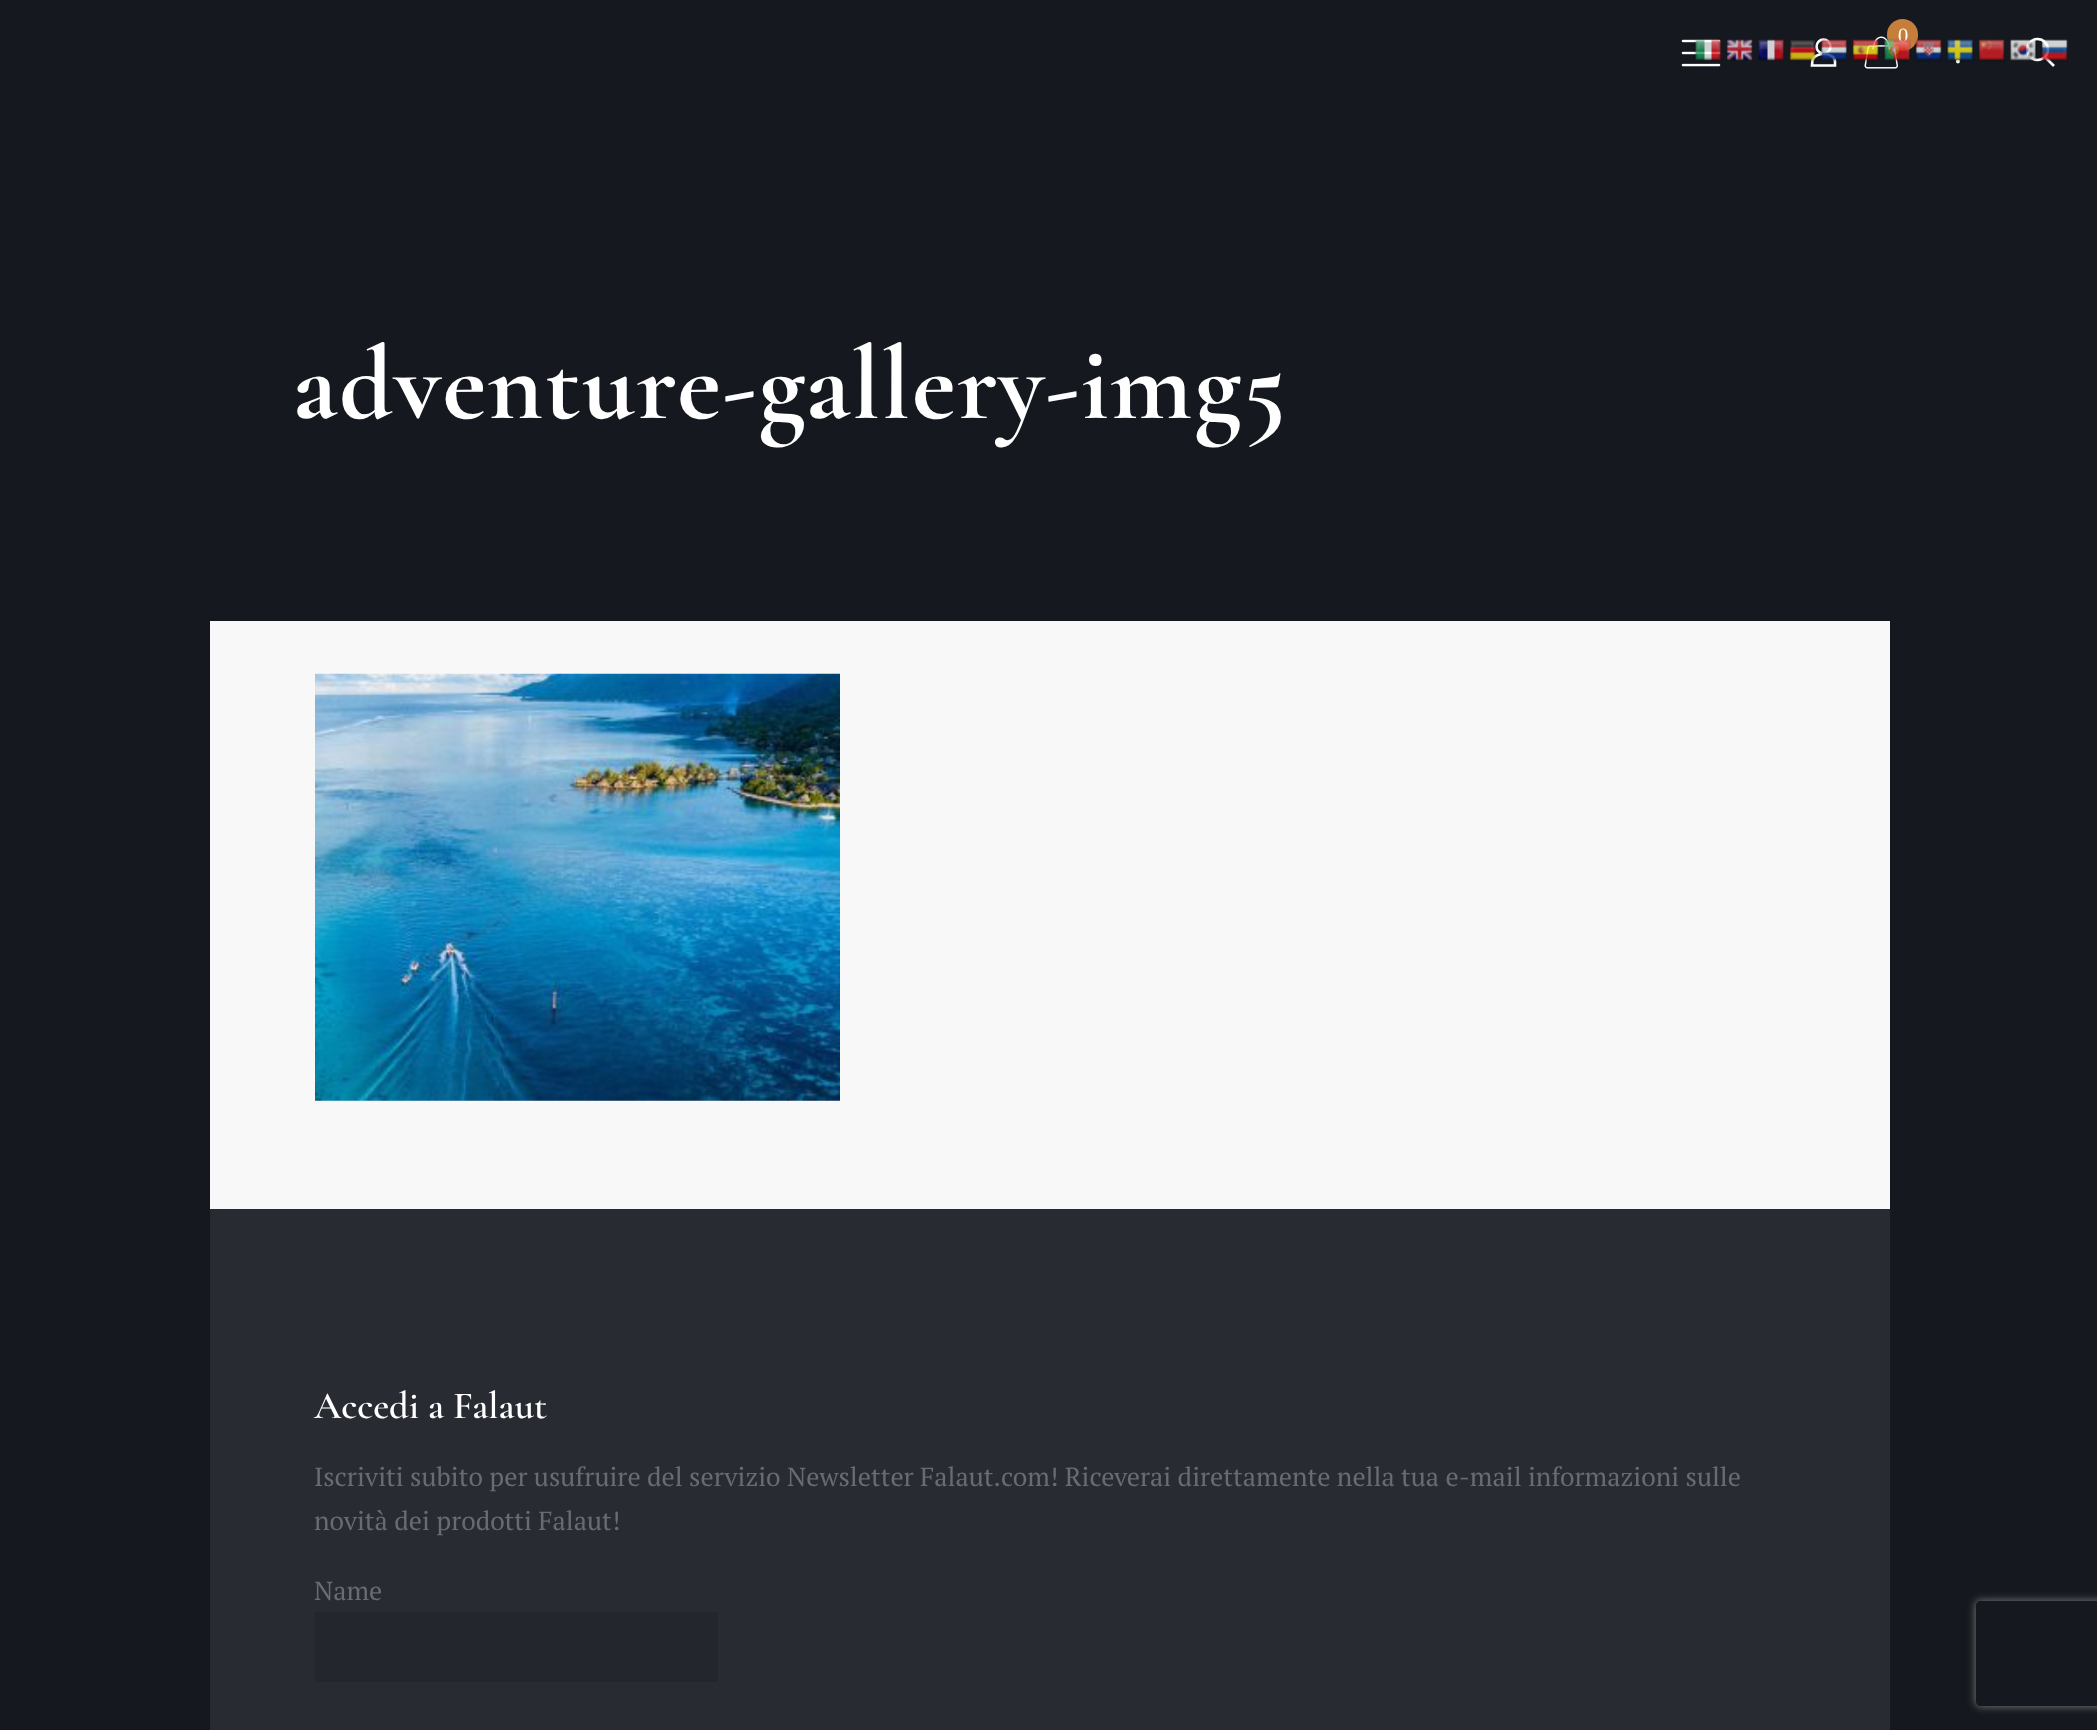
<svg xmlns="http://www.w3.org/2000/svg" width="2097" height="1730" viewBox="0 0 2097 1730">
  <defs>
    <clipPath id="clip1"><path d="M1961 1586H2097V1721H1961ZM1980 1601H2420C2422 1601 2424 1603 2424 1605V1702C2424 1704 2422 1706 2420 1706H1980C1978 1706 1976 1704 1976 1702V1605C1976 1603 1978 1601 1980 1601Z" clip-rule="evenodd"/></clipPath>
    <filter id="blur1" x="-50%" y="-200%" width="200%" height="500%"><feGaussianBlur stdDeviation="4.5"/></filter>
  </defs>
  <rect width="100%" height="100%" fill="#15191f"/>
  <image x="1681" y="39" width="40" height="28" href="img1.png"/>
  <circle cx="1823.5" cy="46.5" r="7" fill="none" stroke="#ffffff" stroke-width="2.6"/>
  <path d="M1835 61.5V65.5H1812L1812.5 60C1815 51.5 1835 52 1835 61.5Z" fill="none" stroke="#ffffff" stroke-width="2.6"/>
  <image x="1864" y="36" width="34" height="33" href="img2.png"/>
  <rect x="1887" y="19" width="31" height="32" rx="15.5" fill="#c57f3b"/>
  <text x="1898" y="42" font-family="PT Serif" font-size="19" fill="#ffffff">0</text>
  <text x="1954" y="63" font-family="PT Serif" font-size="28" fill="#ffffff">.</text>
  <circle cx="2037.5" cy="49.5" r="10.5" fill="none" stroke="#ffffff" stroke-width="2.6"/>
  <path d="M2045 57L2054 66" fill="none" stroke="#ffffff" stroke-width="2.6"/>
  <image x="1694" y="39" width="27" height="22" href="img3.png"/>
  <image x="1726" y="39" width="27" height="22" href="img4.png"/>
  <image x="1758" y="39" width="26" height="22" href="img5.png"/>
  <image x="1789" y="40" width="28" height="23" href="img6.png"/>
  <image x="1820" y="38" width="27" height="25" href="img7.png"/>
  <image x="1852" y="39" width="28" height="24" href="img8.png"/>
  <image x="1883" y="38" width="28" height="25" href="img9.png"/>
  <image x="1914" y="39" width="29" height="24" href="img10.png"/>
  <image x="1946" y="39" width="28" height="24" href="img11.png"/>
  <image x="1977" y="39" width="28" height="24" href="img12.png"/>
  <image x="2010" y="38" width="27" height="23" href="img13.png"/>
  <image x="2040" y="39" width="28" height="24" href="img14.png"/>
  <text x="293" y="418" font-family="Cormorant Garamond" font-size="105" font-weight="bold" letter-spacing="1.75" fill="#ffffff">adventure-gallery-img5</text>
  <rect x="210" y="621" width="1680" height="588" fill="#f9f8f8"/>
  <image x="315" y="673" width="525" height="428" href="img15.png"/>
  <rect x="210" y="1209" width="1680" height="521" fill="#292b33"/>
  <text x="314" y="1418" font-family="Cormorant Garamond" font-size="38.5" font-weight="600" fill="#ffffff">Accedi a Falaut</text>
  <text x="314" y="1486" font-family="PT Serif" font-size="26.25" fill="#696b71">Iscriviti subito per usufruire del servizio Newsletter Falaut.com! Riceverai direttamente nella tua e-mail informazioni sulle</text>
  <text x="314" y="1530" font-family="PT Serif" font-size="26.25" fill="#696b71">novità dei prodotti Falaut!</text>
  <text x="314" y="1600" font-family="PT Serif" font-size="26.25" fill="#696b71">Name</text>
  <rect x="315" y="1612" width="403" height="70" fill="#24262e"/>
  <g clip-path="url(#clip1)">
    <rect x="1976" y="1601" width="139" height="105" rx="4" fill="#808080" filter="url(#blur1)"/>
  </g>
</svg>
